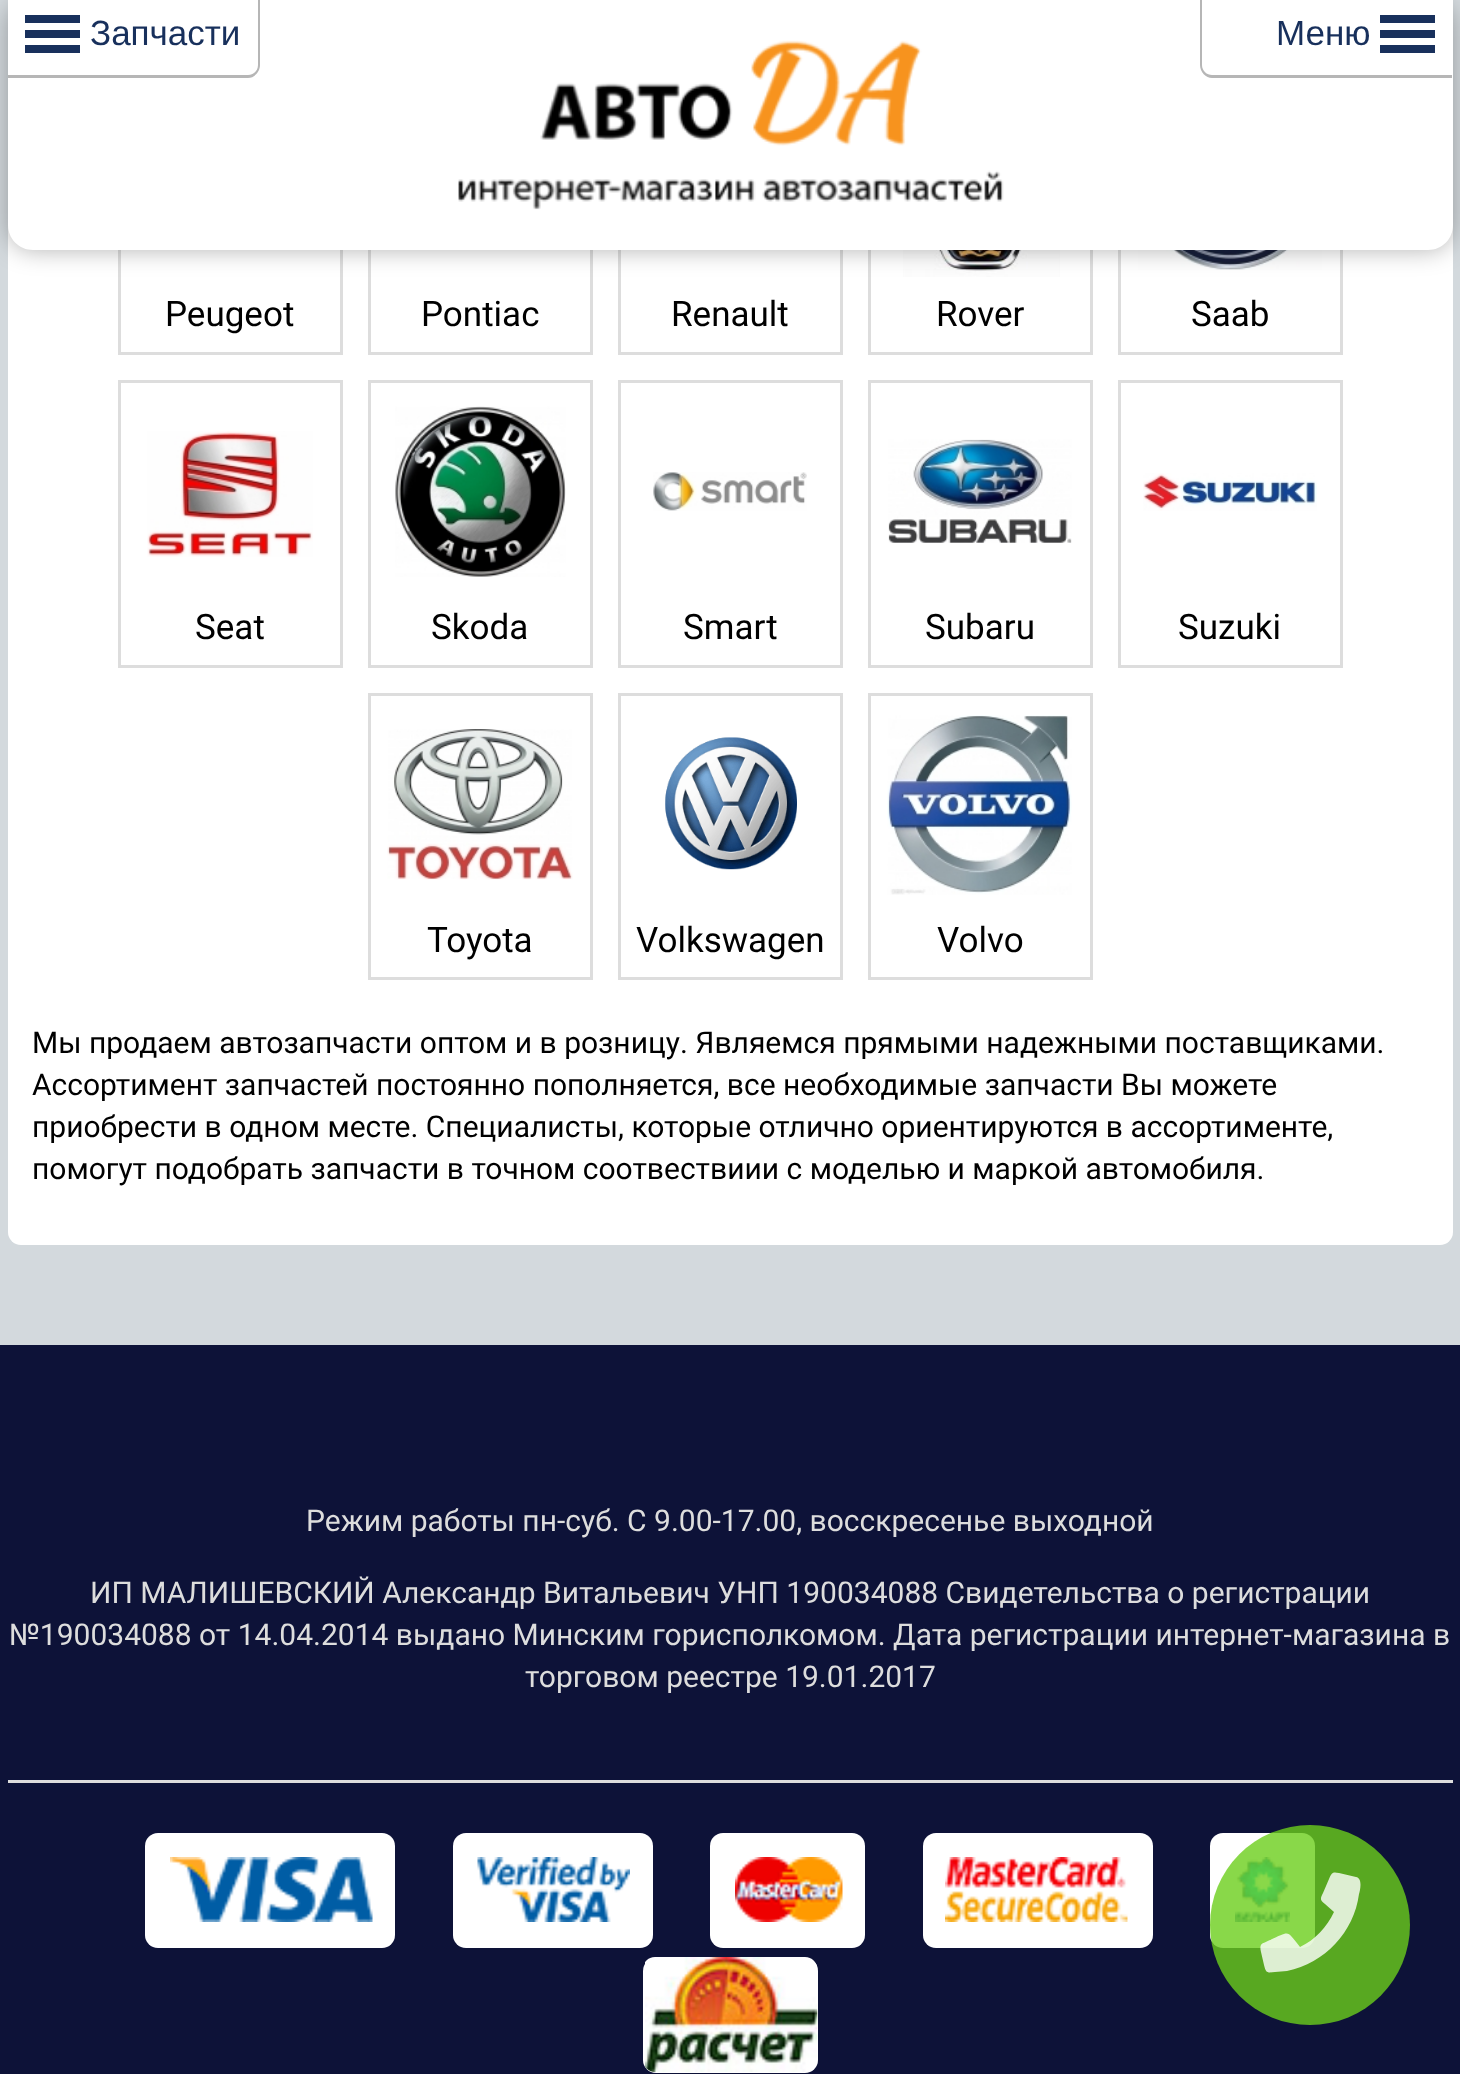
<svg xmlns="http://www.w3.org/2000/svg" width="1460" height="2074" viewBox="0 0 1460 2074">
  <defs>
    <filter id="blur1" x="-50%" y="-200%" width="200%" height="500%"><feGaussianBlur stdDeviation="12.5"/></filter>
  </defs>
  <rect width="100%" height="100%" fill="#d3d9dd"/>
  <rect x="8" y="-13" width="1445" height="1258" rx="13" fill="#ffffff"/>
  <rect x="119.5" y="69.5" width="222" height="284" fill="none" stroke="#dddddd" stroke-width="3"/>
  <rect x="369.5" y="69.5" width="222" height="284" fill="none" stroke="#dddddd" stroke-width="3"/>
  <rect x="619.5" y="69.5" width="222" height="284" fill="none" stroke="#dddddd" stroke-width="3"/>
  <rect x="869.5" y="69.5" width="222" height="284" fill="none" stroke="#dddddd" stroke-width="3"/>
  <image x="903" y="250" width="157" height="27" href="img2.png"/>
  <rect x="1119.5" y="69.5" width="222" height="284" fill="none" stroke="#dddddd" stroke-width="3"/>
  <image x="1138" y="250" width="184" height="20" href="img3.png"/>
  <rect x="8" y="0" width="1445" height="250" rx="25" fill="#000000" fill-opacity="0.3" filter="url(#blur1)"/>
  <path d="M8 0H1453V225C1453 239 1442 250 1428 250H33C19 250 8 239 8 225Z" fill="#ffffff"/>
  <path d="M8 0H260V65C260 72 254 78 248 78H8ZM8 0H258V65C258 71 253 75 248 75H8Z" fill="#b6b6b6" fill-rule="evenodd"/>
  <path d="M1200 0H1452V78H1212C1206 78 1200 72 1200 65ZM1202 0H1452V75H1212C1207 75 1202 71 1202 65Z" fill="#b6b6b6" fill-rule="evenodd"/>
  <rect x="25" y="45" width="55" height="8" fill="#18305c"/>
  <rect x="25" y="15" width="55" height="8" fill="#18305c"/>
  <rect x="25" y="30" width="55" height="8" fill="#18305c"/>
  <text x="90" y="45" font-family="Liberation Sans" font-size="35" fill="#18305c">Запчасти</text>
  <text x="1276" y="45" font-family="Liberation Sans" font-size="35" fill="#18305c">Меню</text>
  <rect x="1380" y="45" width="55" height="8" fill="#18305c"/>
  <rect x="1380" y="15" width="55" height="8" fill="#18305c"/>
  <rect x="1380" y="30" width="55" height="8" fill="#18305c"/>
  <image x="458" y="40" width="546" height="170" href="img1.png"/>
  <text x="165" y="326" font-family="Roboto" font-size="35" fill="#000000">Peugeot</text>
  <text x="421" y="326" font-family="Roboto" font-size="35" fill="#000000">Pontiac</text>
  <text x="671" y="326" font-family="Roboto" font-size="35" fill="#000000">Renault</text>
  <text x="936" y="326" font-family="Roboto" font-size="35" fill="#000000">Rover</text>
  <text x="1191" y="326" font-family="Roboto" font-size="35" fill="#000000">Saab</text>
  <rect x="119.5" y="381.5" width="222" height="285" fill="none" stroke="#dddddd" stroke-width="3"/>
  <image x="147" y="431" width="166" height="126" href="img4.png"/>
  <text x="195" y="639" font-family="Roboto" font-size="35" fill="#000000">Seat</text>
  <rect x="369.5" y="381.5" width="222" height="285" fill="none" stroke="#dddddd" stroke-width="3"/>
  <image x="395" y="406" width="171" height="171" href="img5.png"/>
  <text x="431" y="639" font-family="Roboto" font-size="35" fill="#000000">Skoda</text>
  <rect x="619.5" y="381.5" width="222" height="285" fill="none" stroke="#dddddd" stroke-width="3"/>
  <image x="653" y="472" width="154" height="39" href="img6.png"/>
  <text x="683" y="639" font-family="Roboto" font-size="35" fill="#000000">Smart</text>
  <rect x="869.5" y="381.5" width="222" height="285" fill="none" stroke="#dddddd" stroke-width="3"/>
  <image x="888" y="439" width="184" height="104" href="img7.png"/>
  <text x="925" y="639" font-family="Roboto" font-size="35" fill="#000000">Subaru</text>
  <rect x="1119.5" y="381.5" width="222" height="285" fill="none" stroke="#dddddd" stroke-width="3"/>
  <image x="1143" y="473" width="174" height="38" href="img8.png"/>
  <text x="1178" y="639" font-family="Roboto" font-size="35" fill="#000000">Suzuki</text>
  <rect x="369.5" y="694.5" width="222" height="284" fill="none" stroke="#dddddd" stroke-width="3"/>
  <image x="387" y="729" width="186" height="151" href="img9.png"/>
  <text x="427" y="952" font-family="Roboto" font-size="35" fill="#000000">Toyota</text>
  <rect x="619.5" y="694.5" width="222" height="284" fill="none" stroke="#dddddd" stroke-width="3"/>
  <image x="665" y="737" width="132" height="133" href="img10.png"/>
  <text x="636" y="952" font-family="Roboto" font-size="35" fill="#000000">Volkswagen</text>
  <rect x="869.5" y="694.5" width="222" height="284" fill="none" stroke="#dddddd" stroke-width="3"/>
  <image x="887" y="715" width="185" height="180" href="img11.png"/>
  <text x="937" y="952" font-family="Roboto" font-size="35" fill="#000000">Volvo</text>
  <text x="32" y="1053" font-family="Roboto" font-size="30" fill="#000000">Мы продаем автозапчасти оптом и в розницу. Являемся прямыми надежными поставщиками.</text>
  <text x="32" y="1095" font-family="Roboto" font-size="30" fill="#000000">Ассортимент запчастей постоянно пополняется, все необходимые запчасти Вы можете</text>
  <text x="32" y="1137" font-family="Roboto" font-size="30" fill="#000000">приобрести в одном месте. Специалисты, которые отлично ориентируются в ассортименте,</text>
  <text x="32" y="1179" font-family="Roboto" font-size="30" fill="#000000">помогут подобрать запчасти в точном соотвествиии с моделью и маркой автомобиля.</text>
  <rect x="0" y="1345" width="1460" height="729" fill="#0d1238"/>
  <rect x="8" y="1780" width="1445" height="3" fill="#dddddd"/>
  <text x="306" y="1531" font-family="Roboto" font-size="30" fill="#dddddd">Режим работы пн-суб. С 9.00-17.00, восскресенье выходной</text>
  <text x="90" y="1603" font-family="Roboto" font-size="30" fill="#dddddd">ИП МАЛИШЕВСКИЙ Александр Витальевич УНП 190034088 Свидетельства о регистрации</text>
  <text x="9" y="1645" font-family="Roboto" font-size="30" fill="#dddddd">№190034088 от 14.04.2014 выдано Минским горисполкомом. Дата регистрации интернет-магазина в</text>
  <text x="525" y="1687" font-family="Roboto" font-size="30" fill="#dddddd">торговом реестре 19.01.2017</text>
  <rect x="145" y="1833" width="250" height="115" rx="13" fill="#ffffff"/>
  <image x="170" y="1857" width="203" height="65" href="img12.png"/>
  <rect x="453" y="1833" width="200" height="115" rx="13" fill="#ffffff"/>
  <image x="477" y="1857" width="153" height="65" href="img13.png"/>
  <rect x="710" y="1833" width="155" height="115" rx="13" fill="#ffffff"/>
  <image x="735" y="1857" width="108" height="65" href="img14.png"/>
  <rect x="923" y="1833" width="230" height="115" rx="13" fill="#ffffff"/>
  <image x="945" y="1857" width="183" height="65" href="img15.png"/>
  <rect x="1210" y="1833" width="105" height="115" rx="13" fill="#ffffff"/>
  <image x="1235" y="1857" width="55" height="65" href="img16.png"/>
  <rect x="643" y="1958" width="175" height="115" rx="13" fill="#ffffff"/>
  <image x="645" y="1957" width="173" height="115" href="img17.png"/>
  <circle cx="1310" cy="1925" r="100" fill="#6bce1b" fill-opacity="0.8"/>
  <path d="M1356 1877L1339 1873C1333 1872 1332 1872 1329 1879L1323 1893C1320 1899 1320 1900 1325 1904L1334 1912C1327 1927 1315 1940 1300 1947C1286 1930 1291 1931 1270 1940C1262 1944 1259 1943 1261 1952L1264 1965C1266 1973 1267 1973 1275 1972L1287 1971C1325 1963 1354 1932 1359 1894C1360 1891 1363 1878 1356 1877Z" fill="#ffffff" fill-opacity="0.8"/>
</svg>
